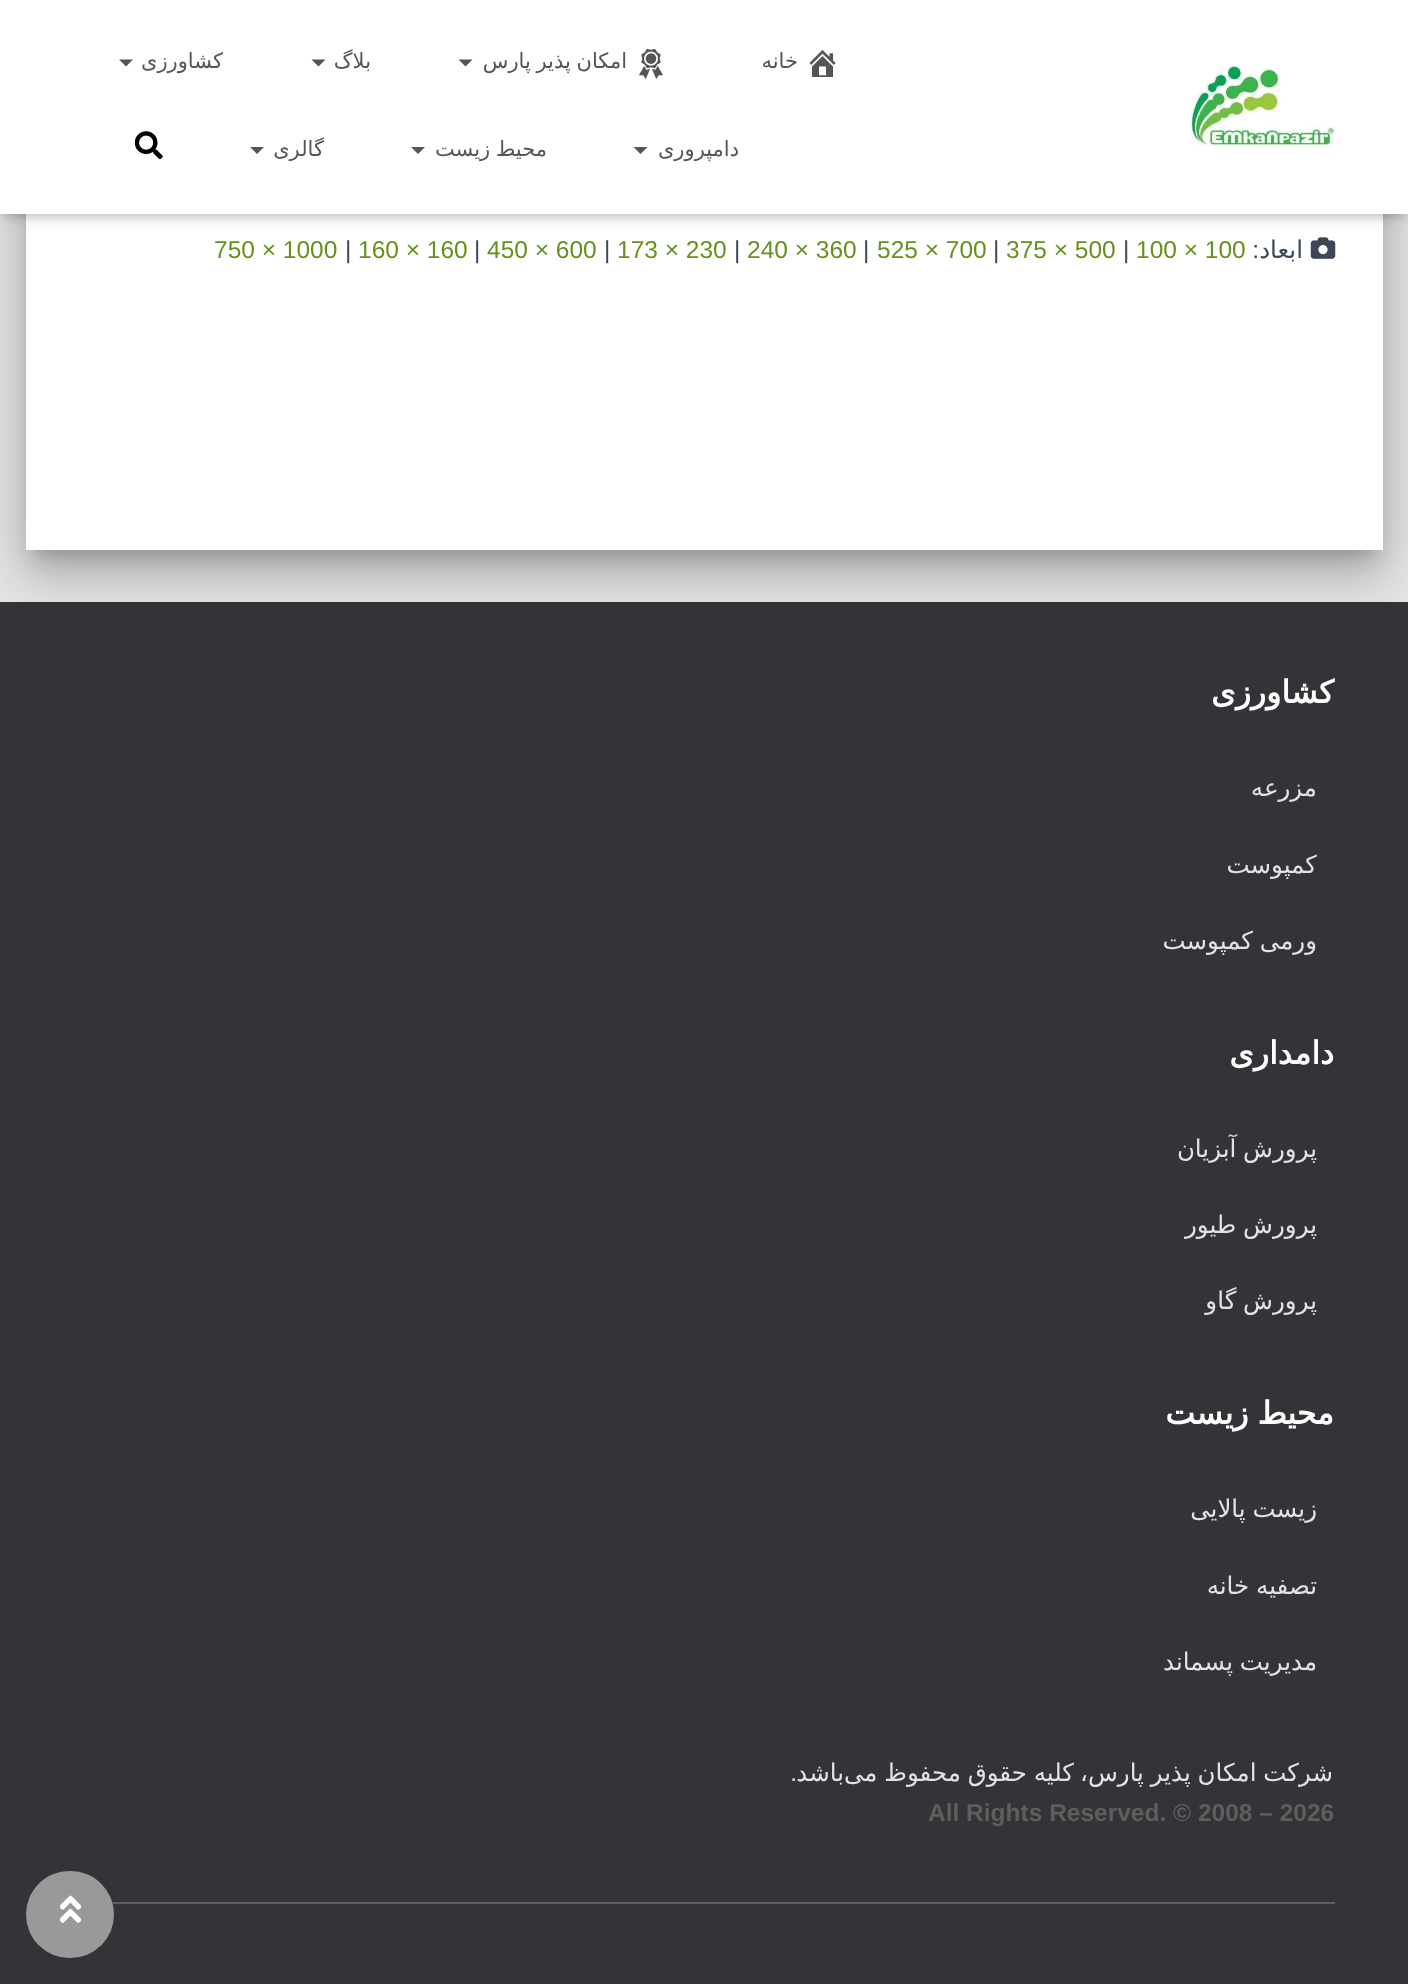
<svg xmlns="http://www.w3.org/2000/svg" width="1408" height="1984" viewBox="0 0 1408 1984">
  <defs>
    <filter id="blur1" x="-50%" y="-200%" width="200%" height="500%"><feGaussianBlur stdDeviation="9"/></filter>
    <filter id="blur2" x="-50%" y="-200%" width="200%" height="500%"><feGaussianBlur stdDeviation="26"/></filter>
    <filter id="blur3" x="-50%" y="-200%" width="200%" height="500%"><feGaussianBlur stdDeviation="21"/></filter>
    <filter id="blur4" x="-50%" y="-200%" width="200%" height="500%"><feGaussianBlur stdDeviation="4.5"/></filter>
  </defs>
  <rect width="100%" height="100%" fill="#e5e5e5"/>
  <rect x="35" y="-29" width="1339" height="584" rx="2" fill="#000000" fill-opacity="0.2" filter="url(#blur1)"/>
  <rect x="0" y="602" width="1408" height="1382" fill="#323437"/>
  <rect x="18" y="-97" width="1373" height="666" rx="19" fill="#000000" fill-opacity="0.12" filter="url(#blur2)"/>
  <rect x="23" y="-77" width="1363" height="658" rx="14" fill="#000000" fill-opacity="0.14" filter="url(#blur3)"/>
  <rect x="26" y="214" width="1357" height="336" fill="#ffffff"/>
  <rect x="4" y="11" width="1401" height="206" fill="#000000" fill-opacity="0.1" filter="url(#blur4)"/>
  <image x="1310" y="237" width="26" height="22" href="img5.png"/>
  <rect x="0" y="2" width="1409" height="213" fill="#000000" fill-opacity="0.12" filter="url(#blur1)"/>
  <rect x="11" y="12" width="1387" height="193" fill="#000000" fill-opacity="0.42" filter="url(#blur1)"/>
  <rect x="0" y="0" width="1408" height="214" fill="#ffffff"/>
  <image x="1190" y="65" width="146" height="82" href="img1.png"/>
  <image x="809" y="50" width="27" height="27" href="img2.png"/>
  <text x="798" y="68" font-family="DejaVu Sans" font-size="21" direction="rtl" fill="#555555">خانه</text>
  <image x="639" y="48" width="24" height="31" href="img3.png"/>
  <text x="627" y="68" word-spacing="-1" font-family="DejaVu Sans" font-size="21" direction="rtl" fill="#555555">امکان پذیر پارس</text>
  <path d="M458.5 59.5H472.5L465.5 66.5Z" fill="#555555"/>
  <text x="371" y="68" font-family="DejaVu Sans" font-size="21" direction="rtl" fill="#555555">بلاگ</text>
  <path d="M311.5 59.5H325.5L318.5 66.5Z" fill="#555555"/>
  <text x="223" y="68" font-family="DejaVu Sans" font-size="21" direction="rtl" fill="#555555">کشاورزی</text>
  <path d="M119 59.5H133L126 66.5Z" fill="#555555"/>
  <text x="739" y="156" font-family="DejaVu Sans" font-size="21" direction="rtl" fill="#555555">دامپروری</text>
  <path d="M633.5 147H647.5L640.5 154Z" fill="#555555"/>
  <text x="547" y="156" word-spacing="-1" font-family="DejaVu Sans" font-size="21" direction="rtl" fill="#555555">محیط زیست</text>
  <path d="M411 147H425L418 154Z" fill="#555555"/>
  <text x="324" y="156" font-family="DejaVu Sans" font-size="21" direction="rtl" fill="#555555">گالری</text>
  <path d="M250 147H264L257 154Z" fill="#555555"/>
  <image x="135" y="131" width="28" height="28" href="img4.png"/>
  <text x="1303" y="258" font-family="DejaVu Sans" font-size="24.5" direction="rtl" fill="#3c4858">ابعاد</text>
  <text x="1259" y="258" font-family="Liberation Sans" font-size="24.5" direction="rtl" fill="#3c4858">:</text>
  <text x="1136" y="258" font-family="Liberation Sans" font-size="24.5" fill="#65911e">100 × 100</text>
  <text x="1123" y="258" font-family="Liberation Sans" font-size="24.5" fill="#3c4858">|</text>
  <text x="1006" y="258" font-family="Liberation Sans" font-size="24.5" fill="#65911e">375 × 500</text>
  <text x="993" y="258" font-family="Liberation Sans" font-size="24.5" fill="#3c4858">|</text>
  <text x="877" y="258" font-family="Liberation Sans" font-size="24.5" fill="#65911e">525 × 700</text>
  <text x="863" y="258" font-family="Liberation Sans" font-size="24.5" fill="#3c4858">|</text>
  <text x="747" y="258" font-family="Liberation Sans" font-size="24.5" fill="#65911e">240 × 360</text>
  <text x="734" y="258" font-family="Liberation Sans" font-size="24.5" fill="#3c4858">|</text>
  <text x="617" y="258" font-family="Liberation Sans" font-size="24.5" fill="#65911e">173 × 230</text>
  <text x="604" y="258" font-family="Liberation Sans" font-size="24.5" fill="#3c4858">|</text>
  <text x="487" y="258" font-family="Liberation Sans" font-size="24.5" fill="#65911e">450 × 600</text>
  <text x="474" y="258" font-family="Liberation Sans" font-size="24.5" fill="#3c4858">|</text>
  <text x="358" y="258" font-family="Liberation Sans" font-size="24.5" fill="#65911e">160 × 160</text>
  <text x="345" y="258" font-family="Liberation Sans" font-size="24.5" fill="#3c4858">|</text>
  <text x="214" y="258" font-family="Liberation Sans" font-size="24.5" fill="#65911e">750 × 1000</text>
  <text x="1334" y="703" font-family="DejaVu Sans" font-size="31.5" font-weight="bold" direction="rtl" fill="#ffffff">کشاورزی</text>
  <text x="1317" y="796" font-family="DejaVu Sans" font-size="24.5" direction="rtl" fill="#e2e3e3">مزرعه</text>
  <text x="1317" y="873" font-family="DejaVu Sans" font-size="24.5" direction="rtl" fill="#e2e3e3">کمپوست</text>
  <text x="1317" y="949" word-spacing="-1" font-family="DejaVu Sans" font-size="24.5" direction="rtl" fill="#e2e3e3">ورمی کمپوست</text>
  <text x="1334" y="1064" font-family="DejaVu Sans" font-size="31.5" font-weight="bold" direction="rtl" fill="#ffffff">دامداری</text>
  <text x="1317" y="1157" word-spacing="-1" font-family="DejaVu Sans" font-size="24.5" direction="rtl" fill="#e2e3e3">پرورش آبزیان</text>
  <text x="1317" y="1233" word-spacing="-1" font-family="DejaVu Sans" font-size="24.5" direction="rtl" fill="#e2e3e3">پرورش طیور</text>
  <text x="1317" y="1309" word-spacing="-1" font-family="DejaVu Sans" font-size="24.5" direction="rtl" fill="#e2e3e3">پرورش گاو</text>
  <text x="1334" y="1424" word-spacing="-1" font-family="DejaVu Sans" font-size="31.5" font-weight="bold" direction="rtl" fill="#ffffff">محیط زیست</text>
  <text x="1317" y="1517" word-spacing="-1" font-family="DejaVu Sans" font-size="24.5" direction="rtl" fill="#e2e3e3">زیست پالایی</text>
  <text x="1317" y="1594" word-spacing="-1" font-family="DejaVu Sans" font-size="24.5" direction="rtl" fill="#e2e3e3">تصفیه خانه</text>
  <text x="1317" y="1670" word-spacing="-1" font-family="DejaVu Sans" font-size="24.5" direction="rtl" fill="#e2e3e3">مدیریت پسماند</text>
  <text x="1333" y="1781" word-spacing="-1" font-family="DejaVu Sans" font-size="24.5" direction="rtl" fill="#e2e3e3">شرکت امکان پذیر پارس،</text>
  <text x="1074" y="1781" word-spacing="-1" font-family="DejaVu Sans" font-size="24.5" direction="rtl" fill="#e2e3e3">کلیه حقوق محفوظ می</text>
  <text x="844" y="1781" font-family="DejaVu Sans" font-size="24.5" direction="rtl" fill="#e2e3e3">باشد</text>
  <text x="797" y="1781" font-family="Liberation Sans" font-size="24.5" direction="rtl" fill="#e2e3e3">.</text>
  <text x="928" y="1821" font-family="Liberation Sans" font-size="24.5" font-weight="bold" fill="#5e5e5e">All Rights Reserved. © 2008 – 2026</text>
  <rect x="112" y="1902" width="1223" height="2" fill="#5e5e5e"/>
  <rect x="26" y="1871" width="88" height="87" rx="43.5" fill="#999999"/>
  <image x="60" y="1895" width="21" height="28" href="img6.png"/>
</svg>
